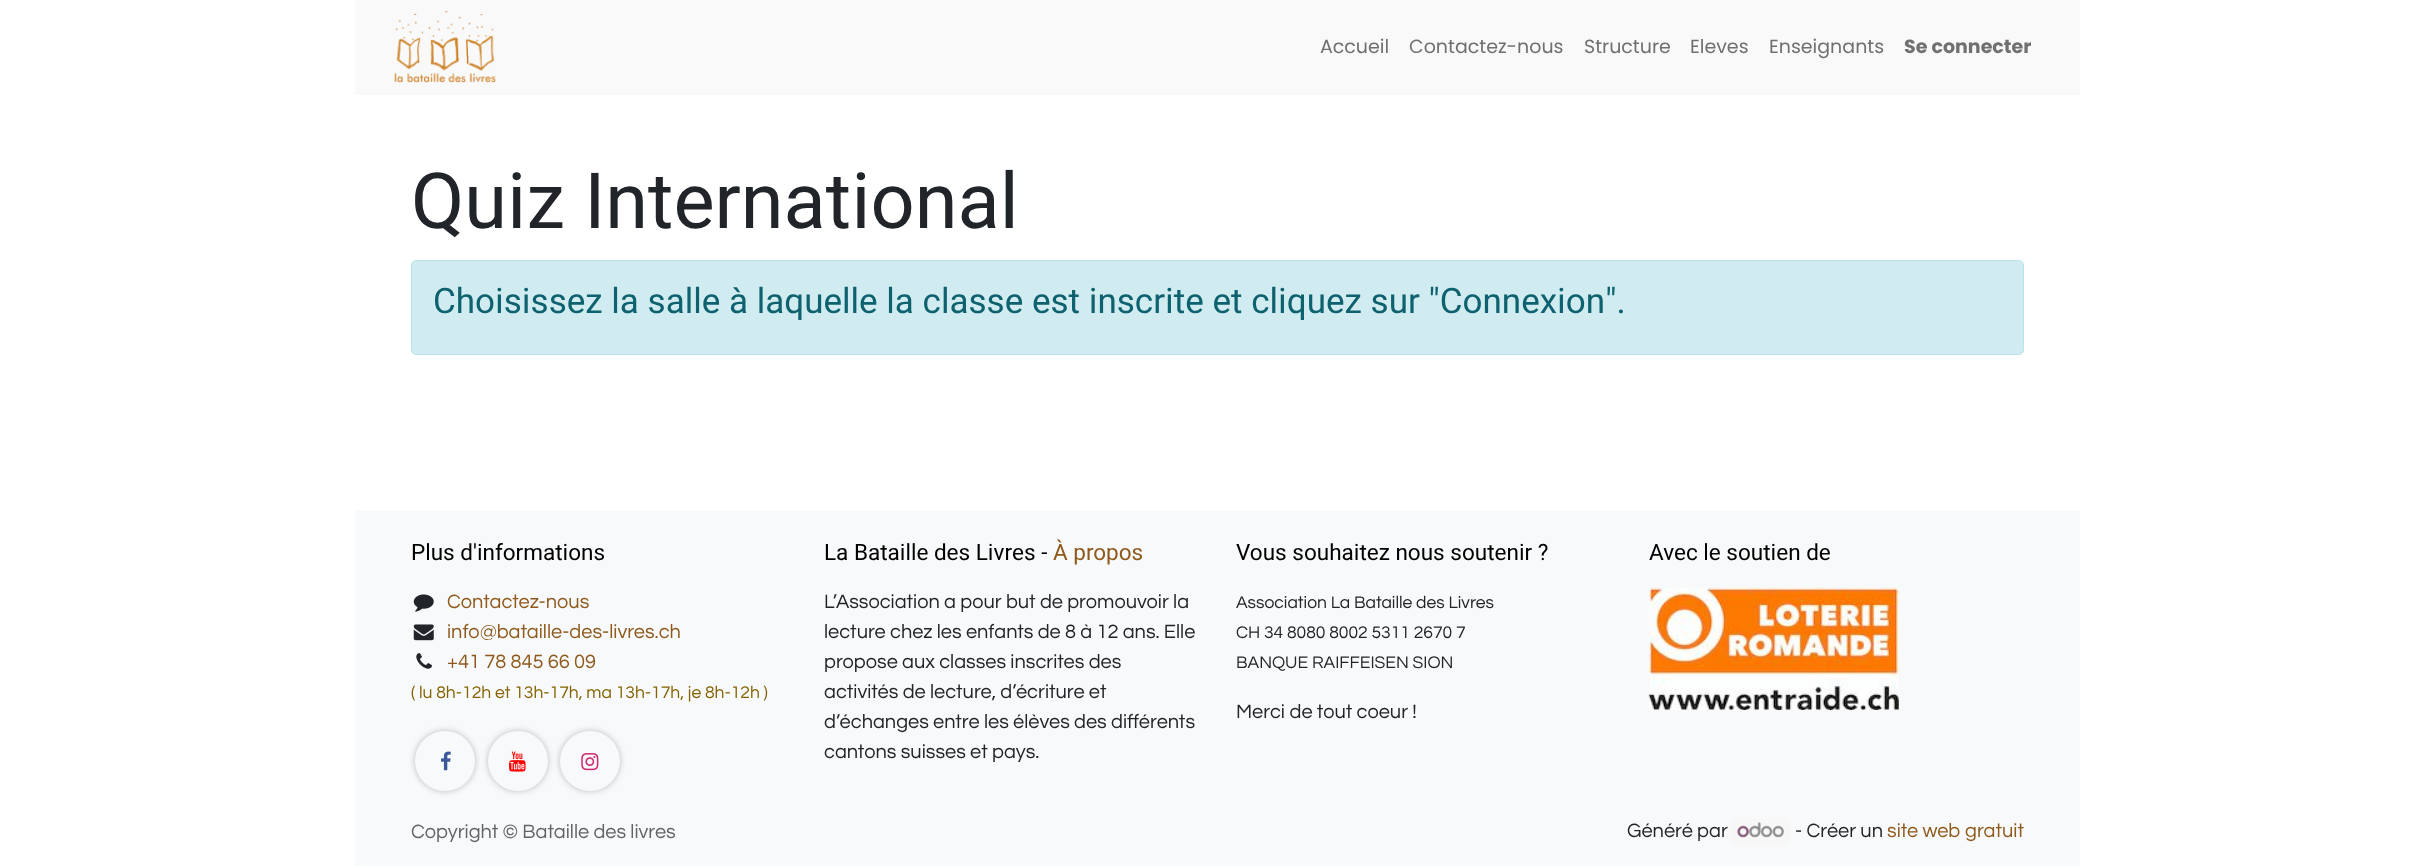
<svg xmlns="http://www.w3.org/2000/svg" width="2435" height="866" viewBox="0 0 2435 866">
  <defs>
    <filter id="blur1" x="-50%" y="-200%" width="200%" height="500%"><feGaussianBlur stdDeviation="3"/></filter>
  </defs>
  <rect width="100%" height="100%" fill="#ffffff"/>
  <rect x="355" y="0" width="1725" height="95" fill="#f9f9f9"/>
  <image x="394" y="11" width="102" height="72" href="img1.png"/>
  <text x="1320" y="53" font-family="Poppins" font-size="19" fill="#707070">Accueil</text>
  <text x="1409" y="53" font-family="Poppins" font-size="19" fill="#707070">Contactez-nous</text>
  <text x="1584" y="53" font-family="Poppins" font-size="19" fill="#707070">Structure</text>
  <text x="1690" y="53" font-family="Poppins" font-size="19" fill="#707070">Eleves</text>
  <text x="1769" y="53" font-family="Poppins" font-size="19" fill="#707070">Enseignants</text>
  <text x="1904" y="53" font-family="Poppins" font-size="19" font-weight="bold" fill="#707070">Se connecter</text>
  <text x="411" y="228" font-family="Heebo" font-size="77.5" fill="#212529">Quiz International</text>
  <rect x="411.5" y="260.5" width="1612" height="94" rx="4.5" fill="#d1ecf1" stroke="#b9e3ea"/>
  <text x="433" y="313" font-family="Heebo" font-size="35" fill="#0e616e">Choisissez la salle à laquelle la classe est inscrite et cliquez sur "Connexion".</text>
  <rect x="355" y="510" width="1725" height="356" fill="#f8f9fa"/>
  <text x="411" y="560" font-family="Heebo" font-size="22.5" fill="#000000">Plus d'informations</text>
  <image x="413" y="594" width="21" height="18" href="img2.png"/>
  <text x="447" y="608" font-family="Questrial" font-size="20" fill="#8e591b">Contactez-nous</text>
  <image x="413" y="624" width="21" height="17" href="img3.png"/>
  <text x="447" y="638" font-family="Questrial" font-size="20" fill="#8e591b">info@bataille-des-livres.ch</text>
  <image x="416" y="653" width="16" height="16" href="img4.png"/>
  <text x="447" y="668" font-family="Questrial" font-size="20" fill="#8e591b">+41 78 845 66 09</text>
  <text x="411" y="698" font-family="Questrial" font-size="17.5" fill="#846300">( lu 8h-12h et 13h-17h, ma 13h-17h, je 8h-12h )</text>
  <rect x="415" y="731" width="60" height="60" rx="30" fill="#000000" fill-opacity="0.25" filter="url(#blur1)"/>
  <circle cx="445" cy="761" r="30" fill="#f8f9fa"/>
  <image x="441" y="751" width="10" height="20" href="img5.png"/>
  <rect x="488" y="731" width="60" height="60" rx="30" fill="#000000" fill-opacity="0.25" filter="url(#blur1)"/>
  <circle cx="518" cy="761" r="30" fill="#f8f9fa"/>
  <image x="509" y="751" width="17" height="21" href="img6.png"/>
  <rect x="560" y="731" width="60" height="60" rx="30" fill="#000000" fill-opacity="0.25" filter="url(#blur1)"/>
  <circle cx="590" cy="761" r="30" fill="#f8f9fa"/>
  <image x="581" y="753" width="18" height="18" href="img7.png"/>
  <text x="824" y="560" font-family="Heebo" font-size="22.5" fill="#000000">La Bataille des Livres -</text>
  <text x="1053" y="560" font-family="Heebo" font-size="22.5" fill="#8e591b">À propos</text>
  <text x="824" y="608" font-family="Questrial" font-size="20" fill="#212529">L’Association a pour but de promouvoir la</text>
  <text x="824" y="638" font-family="Questrial" font-size="20" fill="#212529">lecture chez les enfants de 8 à 12 ans. Elle</text>
  <text x="824" y="668" font-family="Questrial" font-size="20" fill="#212529">propose aux classes inscrites des</text>
  <text x="824" y="698" font-family="Questrial" font-size="20" fill="#212529">activités de lecture, d’écriture et</text>
  <text x="824" y="728" font-family="Questrial" font-size="20" fill="#212529">d’échanges entre les élèves des différents</text>
  <text x="824" y="758" font-family="Questrial" font-size="20" fill="#212529">cantons suisses et pays.</text>
  <text x="1236" y="560" font-family="Heebo" font-size="22.5" fill="#000000">Vous souhaitez nous soutenir ?</text>
  <text x="1236" y="608" font-family="Questrial" font-size="17.5" fill="#212529">Association La Bataille des Livres</text>
  <text x="1236" y="638" font-family="Questrial" font-size="17.5" fill="#212529">CH 34 8080 8002 5311 2670 7</text>
  <text x="1236" y="668" font-family="Questrial" font-size="17.5" fill="#212529">BANQUE RAIFFEISEN SION</text>
  <text x="1236" y="718" font-family="Questrial" font-size="20" fill="#212529">Merci de tout coeur !</text>
  <text x="1649" y="560" font-family="Heebo" font-size="22.5" fill="#000000">Avec le soutien de</text>
  <image x="1648" y="587" width="251" height="123" href="img8.png"/>
  <text x="411" y="838" font-family="Questrial" font-size="20" fill="#626568">Copyright © Bataille des livres</text>
  <text x="1627" y="837" font-family="Questrial" font-size="20" fill="#212529">Généré par</text>
  <rect x="1731" y="819" width="59" height="26" rx="5" fill="#f7f7f7"/>
  <image x="1737" y="822" width="47" height="16" href="img9.png"/>
  <text x="1795" y="837" font-family="Questrial" font-size="20" fill="#212529">- Créer un</text>
  <text x="1887" y="837" font-family="Questrial" font-size="20" fill="#8e591b">site web gratuit</text>
</svg>
